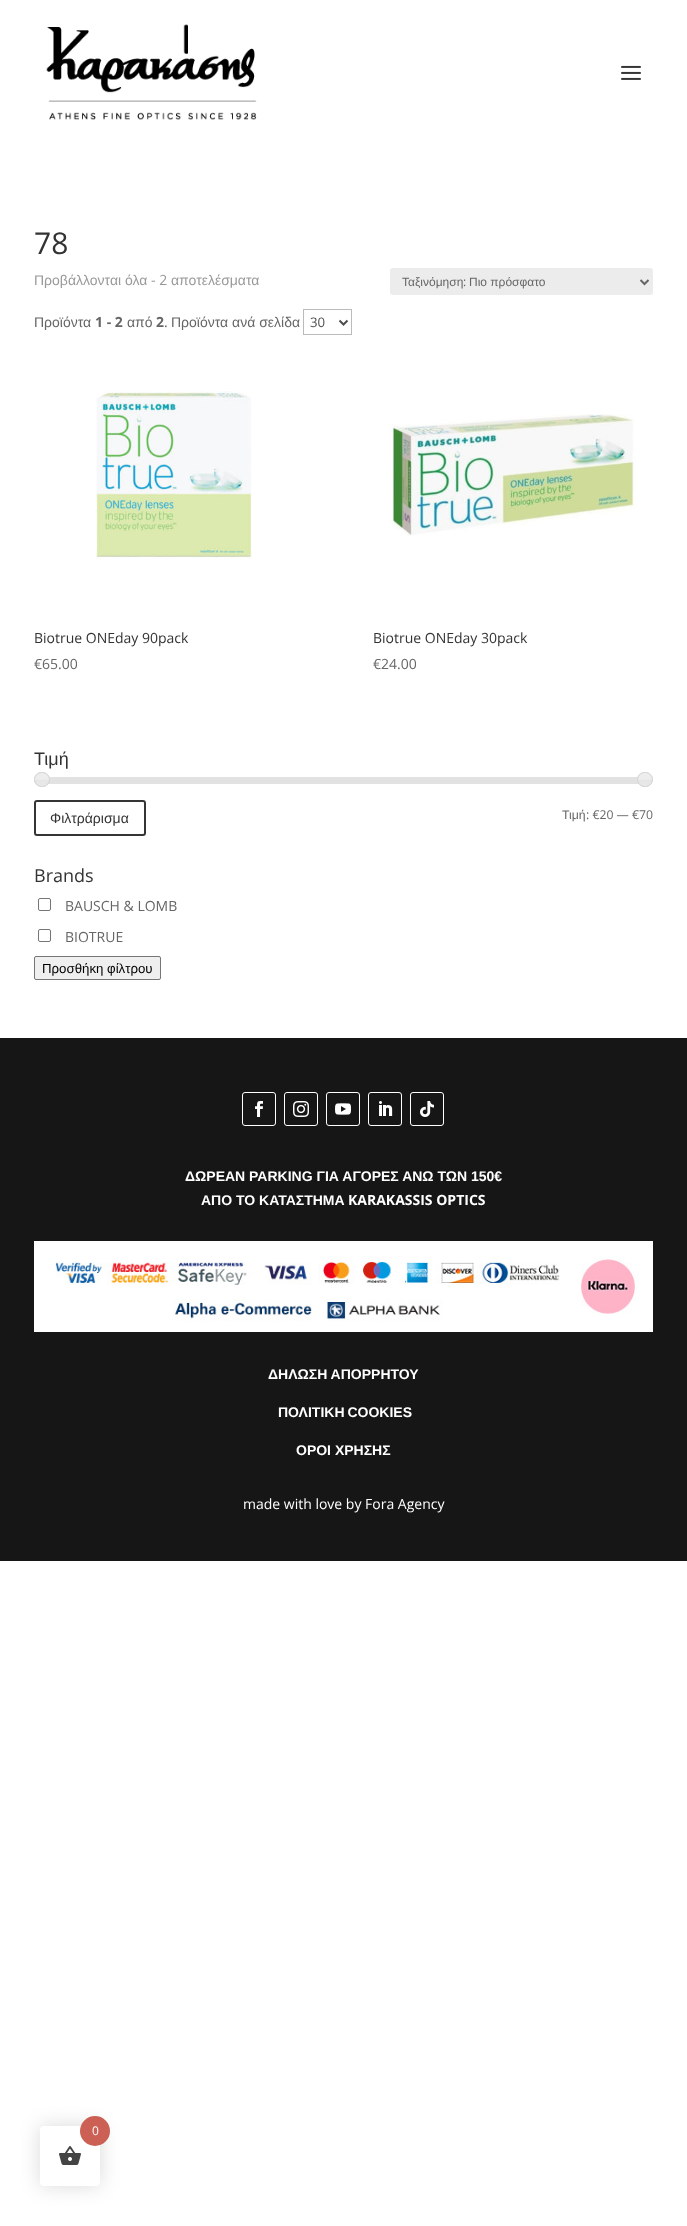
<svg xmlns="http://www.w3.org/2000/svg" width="687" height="2226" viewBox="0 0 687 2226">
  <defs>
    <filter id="blur1" x="-50%" y="-200%" width="200%" height="500%"><feGaussianBlur stdDeviation="10"/></filter>
  </defs>
  <rect width="100%" height="100%" fill="#ffffff"/>
  <image x="46" y="24" width="211" height="96" href="img1.png"/>
  <image x="621" y="65" width="20" height="15" href="img2.png"/>
  <text x="34" y="254" font-family="Open Sans" font-size="30" fill="#333333">78</text>
  <text x="34" y="285" font-family="Liberation Sans" font-size="14" fill="#999999">Προβάλλονται όλα</text>
  <text x="151" y="285" font-family="Open Sans" font-size="14" fill="#999999">- 2</text>
  <text x="171" y="285" font-family="Liberation Sans" font-size="14" fill="#999999">αποτελέσματα</text>
  <rect x="390" y="268" width="263" height="27" rx="3" fill="#ececec"/>
  <path d="M640.5 280L644.5 284L648.5 280" fill="none" stroke="#666666" stroke-width="2"/>
  <text x="402" y="286" font-family="Liberation Sans" font-size="12" fill="#666666">Ταξινόμηση</text>
  <text x="463" y="286" font-family="Open Sans" font-size="12" fill="#666666">:</text>
  <text x="469" y="286" font-family="Liberation Sans" font-size="12" fill="#666666">Πιο πρόσφατο</text>
  <text x="34" y="327" font-family="Liberation Sans" font-size="14" fill="#666666">Προϊόντα</text>
  <text x="95" y="327" font-family="Open Sans" font-size="14" font-weight="bold" fill="#666666">1 - 2</text>
  <text x="127" y="327" font-family="Liberation Sans" font-size="14" fill="#666666">από</text>
  <text x="156" y="327" font-family="Open Sans" font-size="14" font-weight="bold" fill="#666666">2</text>
  <text x="164" y="327" font-family="Open Sans" font-size="14" fill="#666666">.</text>
  <text x="171" y="327" font-family="Liberation Sans" font-size="14" fill="#666666">Προϊόντα ανά σελίδα</text>
  <rect x="303.5" y="309.5" width="48" height="25" fill="none" stroke="#bbbbbb"/>
  <path d="M339.5 320.5L343.5 324.5L347.5 320.5" fill="none" stroke="#4e4e4e" stroke-width="2"/>
  <text x="310" y="327" font-family="Open Sans" font-size="13.25" fill="#4e4e4e">30</text>
  <image x="96" y="391" width="156" height="168" href="img3.png"/>
  <text x="34" y="643" font-family="Open Sans" font-size="14" fill="#333333">Biotrue ONEday 90pack</text>
  <text x="34" y="669" font-family="Open Sans" font-size="14" fill="#666666">€65.00</text>
  <image x="390" y="414" width="246" height="122" href="img4.png"/>
  <text x="373" y="643" font-family="Open Sans" font-size="14" fill="#333333">Biotrue ONEday 30pack</text>
  <text x="373" y="669" font-family="Open Sans" font-size="14" fill="#666666">€24.00</text>
  <text x="34" y="765" font-family="Liberation Sans" font-size="18" fill="#333333">Τιμή</text>
  <rect x="42" y="777" width="603" height="7" fill="#e2e2e2"/>
  <image x="34" y="772" width="16" height="15" href="img5.png"/>
  <rect x="34.5" y="772.5" width="15" height="14" rx="7" fill="none" stroke="#d3d3d3"/>
  <image x="637" y="772" width="16" height="15" href="img6.png"/>
  <rect x="637.5" y="772.5" width="15" height="14" rx="7" fill="none" stroke="#d3d3d3"/>
  <rect x="35" y="801" width="110" height="34" rx="2" fill="none" stroke="#353535" stroke-width="2"/>
  <text x="50" y="823" font-family="Liberation Sans" font-size="14" fill="#333333">Φιλτράρισμα</text>
  <text x="562" y="819" font-family="Liberation Sans" font-size="12.25" fill="#666666">Τιμή</text>
  <text x="586" y="819" font-family="Open Sans" font-size="12.25" fill="#666666">: €20 — €70</text>
  <text x="34" y="882" font-family="Open Sans" font-size="18" fill="#333333">Brands</text>
  <rect x="38.5" y="898.5" width="12" height="12" rx="1.5" fill="none" stroke="#767676"/>
  <text x="65" y="911" font-family="Open Sans" font-size="14" fill="#666666">BAUSCH &amp; LOMB</text>
  <rect x="38.5" y="929.5" width="12" height="12" rx="1.5" fill="none" stroke="#767676"/>
  <text x="65" y="942" font-family="Open Sans" font-size="14" fill="#666666">BIOTRUE</text>
  <rect x="34.5" y="956.5" width="126" height="23" rx="1.5" fill="#efefef" stroke="#767676"/>
  <text x="42" y="973" font-family="Liberation Sans" font-size="13.25" fill="#000000">Προσθήκη φίλτρου</text>
  <rect x="0" y="1038" width="687" height="523" fill="#161616"/>
  <rect x="242.5" y="1092.5" width="33" height="33" rx="2.5" fill="none" stroke="#ffffff"/>
  <image x="255" y="1101" width="8" height="16" href="img7.png"/>
  <rect x="284.5" y="1092.5" width="33" height="33" rx="2.5" fill="none" stroke="#ffffff"/>
  <image x="293" y="1101" width="16" height="16" href="img8.png"/>
  <rect x="326.5" y="1092.5" width="33" height="33" rx="2.5" fill="none" stroke="#ffffff"/>
  <image x="335" y="1103" width="16" height="12" href="img9.png"/>
  <rect x="368.5" y="1092.5" width="33" height="33" rx="2.5" fill="none" stroke="#ffffff"/>
  <image x="379" y="1101" width="14" height="15" href="img10.png"/>
  <rect x="410.5" y="1092.5" width="33" height="33" rx="2.5" fill="none" stroke="#ffffff"/>
  <image x="420" y="1101" width="14" height="16" href="img11.png"/>
  <text x="185" y="1181" font-family="Liberation Sans" font-size="14" font-weight="bold" fill="#ffffff">ΔΩΡΕΑΝ PARKING ΓΙΑ ΑΓΟΡΕΣ ΑΝΩ ΤΩΝ 150€</text>
  <text x="201" y="1205" font-family="Liberation Sans" font-size="14" font-weight="bold" fill="#ffffff">ΑΠΟ ΤΟ ΚΑΤΑΣΤΗΜΑ</text>
  <text x="348" y="1205" font-family="Open Sans" font-size="14" font-weight="bold" fill="#ffffff">KARAKASSIS OPTICS</text>
  <image x="34" y="1241" width="619" height="91" href="img12.png"/>
  <text x="268" y="1379" font-family="Liberation Sans" font-size="14" font-weight="bold" fill="#ffffff">ΔΗΛΩΣΗ ΑΠΟΡΡΗΤΟΥ</text>
  <text x="278" y="1417" word-spacing="-1" font-family="Liberation Sans" font-size="14" font-weight="bold" fill="#ffffff">ΠΟΛΙΤΙΚΗ COOKIES</text>
  <text x="296" y="1455" font-family="Liberation Sans" font-size="14" font-weight="bold" fill="#ffffff">ΟΡΟΙ ΧΡΗΣΗΣ</text>
  <text x="243" y="1509" font-family="Open Sans" font-size="14" fill="#ffffff">made with love by Fora Agency</text>
  <rect x="40" y="2126" width="60" height="60" rx="4" fill="#000000" fill-opacity="0.15" filter="url(#blur1)"/>
  <rect x="40" y="2126" width="60" height="60" rx="4" fill="#ffffff"/>
  <circle cx="95" cy="2131" r="15" fill="#cc6055"/>
  <text x="92" y="2135" font-family="Open Sans" font-size="12" fill="#ffffff">0</text>
  <image x="59" y="2146" width="22" height="19" href="img13.png"/>
</svg>
